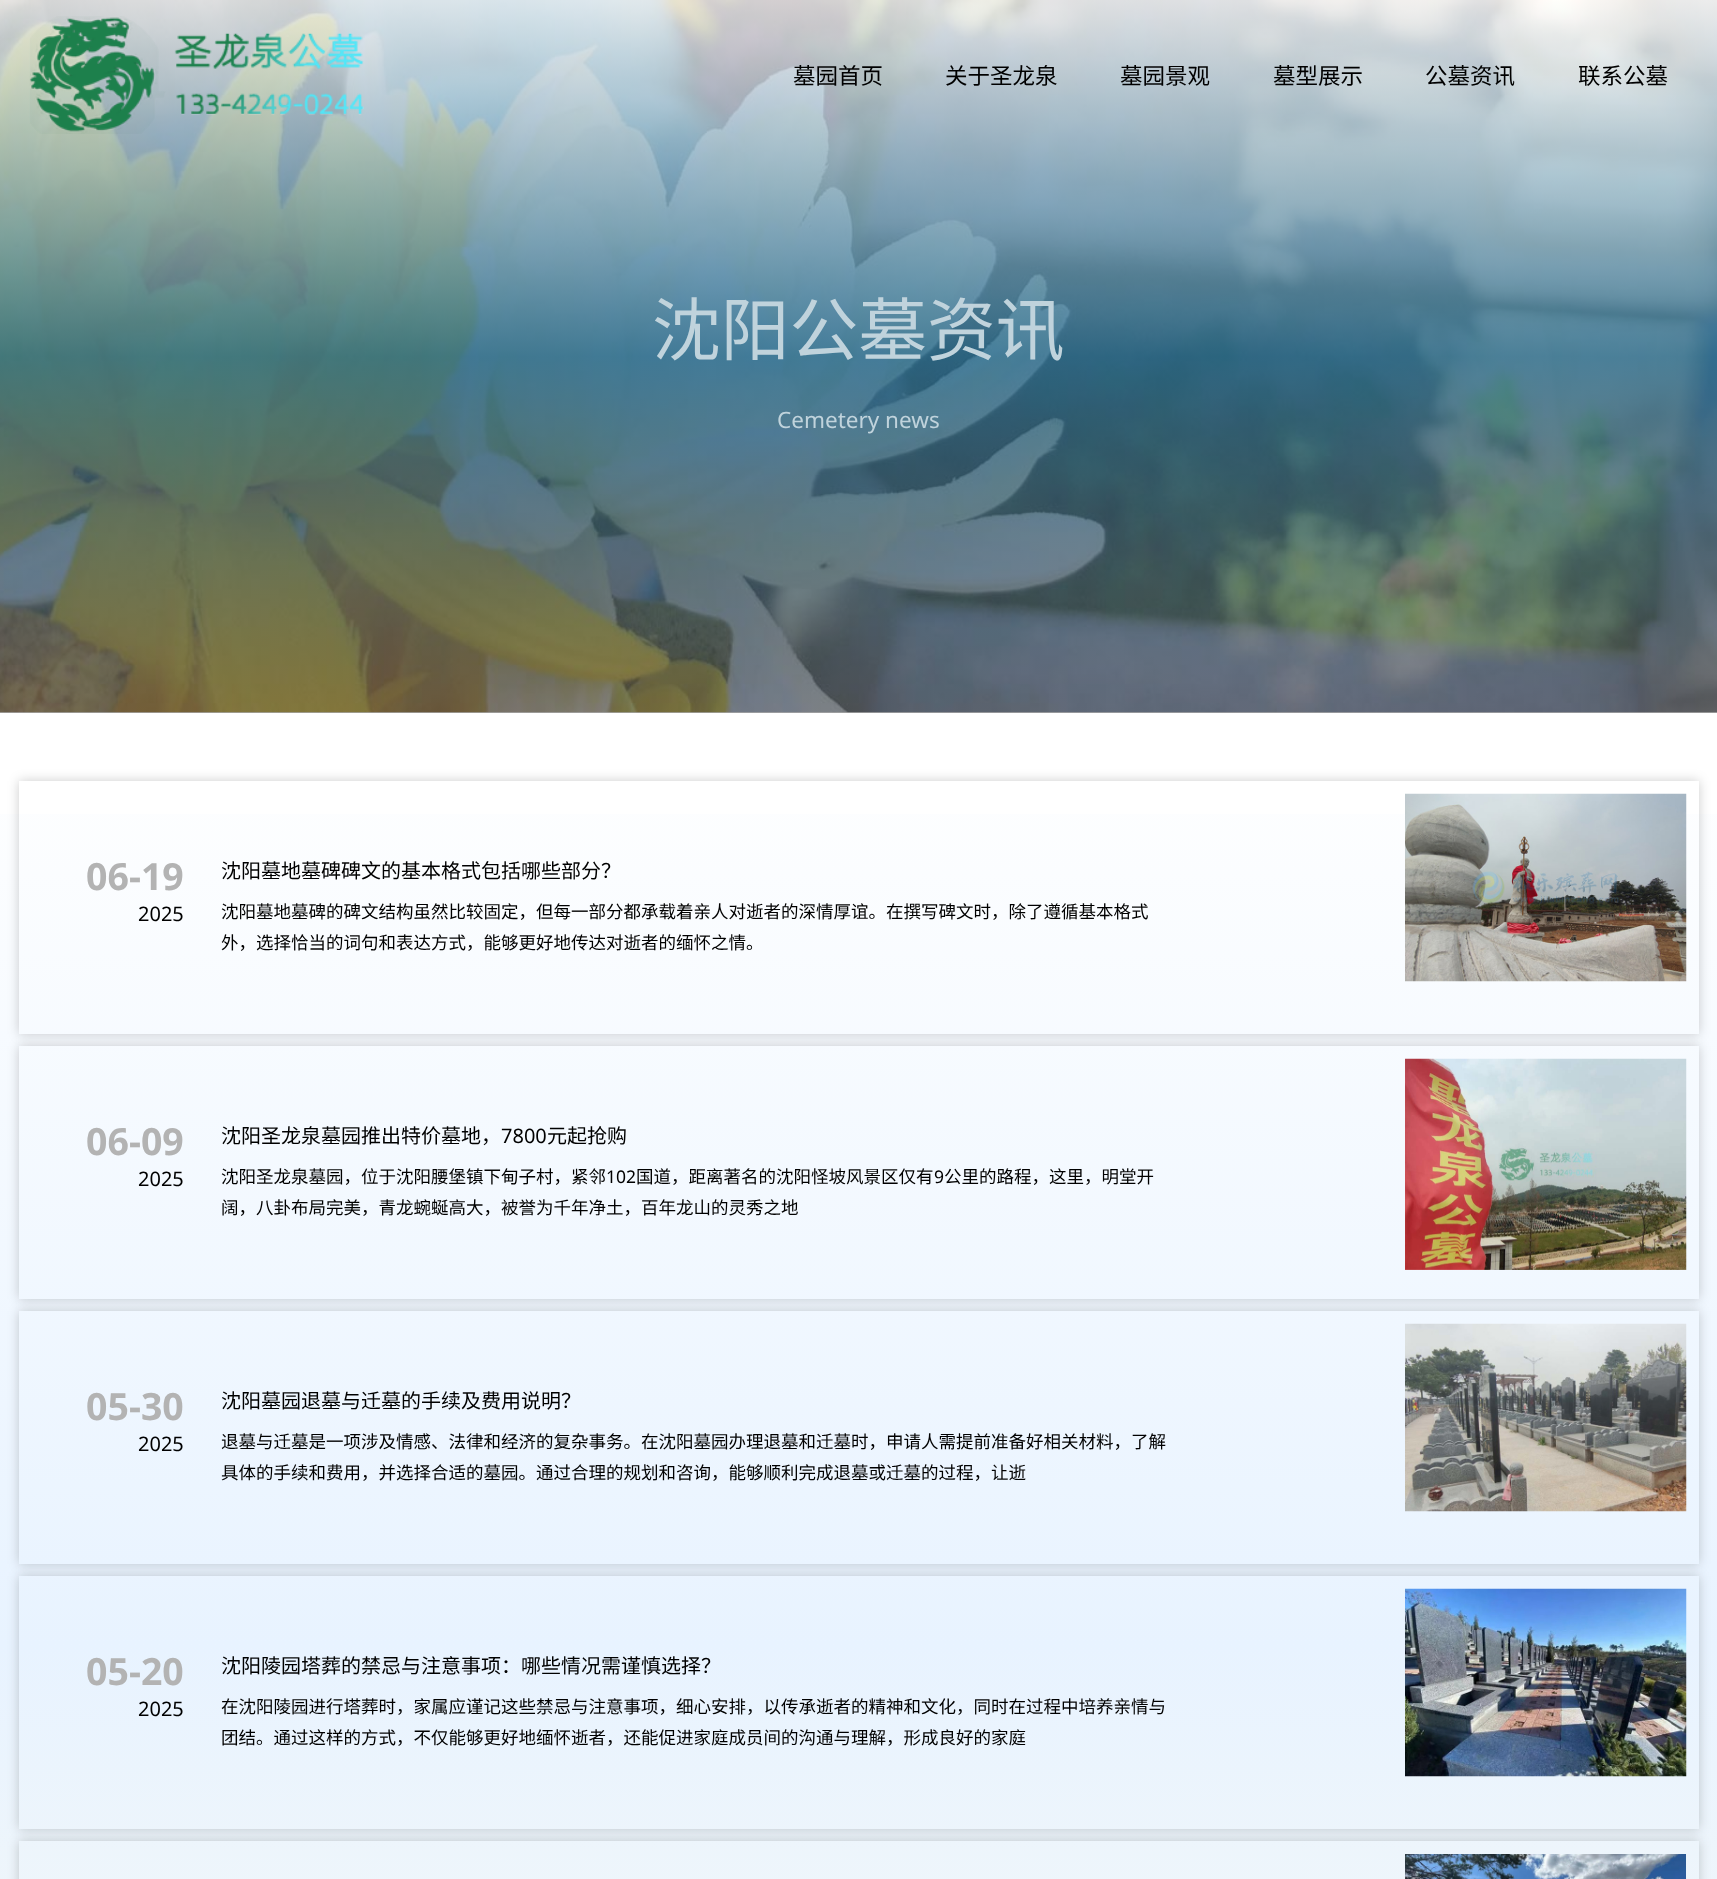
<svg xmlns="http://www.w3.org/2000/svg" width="1717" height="1879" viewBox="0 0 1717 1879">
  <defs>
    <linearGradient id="g1" gradientUnits="userSpaceOnUse" x1="859" y1="713" x2="859" y2="0"><stop offset="0" stop-color="#5b5b5b" stop-opacity="0.53"/><stop offset="0.5" stop-color="#2a6f92" stop-opacity="0.79"/><stop offset="1" stop-color="#ffffff" stop-opacity="0.79"/></linearGradient>
    <linearGradient id="g2" gradientUnits="userSpaceOnUse" x1="859" y1="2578" x2="859" y2="713"><stop offset="0" stop-color="#fffcf0"/><stop offset="0.5" stop-color="#e8f3ff"/><stop offset="1" stop-color="#ffffff"/></linearGradient>
    <clipPath id="clip1"><path d="M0 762H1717V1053H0ZM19 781H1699V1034H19Z" clip-rule="evenodd"/></clipPath>
    <filter id="blur1" x="-50%" y="-200%" width="200%" height="500%"><feGaussianBlur stdDeviation="6"/></filter>
    <clipPath id="clip2"><path d="M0 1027H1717V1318H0ZM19 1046H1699V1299H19Z" clip-rule="evenodd"/></clipPath>
    <clipPath id="clip3"><path d="M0 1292H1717V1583H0ZM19 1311H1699V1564H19Z" clip-rule="evenodd"/></clipPath>
    <clipPath id="clip4"><path d="M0 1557H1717V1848H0ZM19 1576H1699V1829H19Z" clip-rule="evenodd"/></clipPath>
    <clipPath id="clip5"><path d="M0 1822H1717V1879H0ZM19 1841H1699V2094H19Z" clip-rule="evenodd"/></clipPath>
  </defs>
  <rect width="100%" height="100%" fill="#ffffff"/>
  <image x="0" y="0" width="1717" height="713" href="img2.png"/>
  <rect x="0" y="0" width="1717" height="713" fill="url(#g1)"/>
  <image x="29" y="16" width="335" height="118" href="img1.png"/>
  <text x="793" y="84" font-family="Noto Sans CJK SC" font-size="22.5" fill="#000000">墓园首页</text>
  <text x="945" y="84" font-family="Noto Sans CJK SC" font-size="22.5" fill="#000000">关于圣龙泉</text>
  <text x="1120" y="84" font-family="Noto Sans CJK SC" font-size="22.5" fill="#000000">墓园景观</text>
  <text x="1273" y="84" font-family="Noto Sans CJK SC" font-size="22.5" fill="#000000">墓型展示</text>
  <text x="1425" y="84" font-family="Noto Sans CJK SC" font-size="22.5" fill="#000000">公墓资讯</text>
  <text x="1578" y="84" font-family="Noto Sans CJK SC" font-size="22.5" fill="#000000">联系公墓</text>
  <text x="652" y="355" font-family="Noto Sans CJK SC" font-size="68.75" fill="#c0d3dc">沈阳公墓资讯</text>
  <text x="777" y="428" font-family="Noto Sans" font-size="22.5" fill="#c0d3dc">Cemetery news</text>
  <rect x="0" y="814" width="1717" height="1065" fill="url(#g2)"/>
  <g clip-path="url(#clip1)">
    <rect x="19" y="781" width="1680" height="253" fill="#000000" fill-opacity="0.2" filter="url(#blur1)"/>
  </g>
  <text x="86" y="890" font-family="Noto Sans" font-size="37.5" font-weight="bold" fill="#b3b3b3">06-19</text>
  <text x="138" y="921" font-family="Noto Sans" font-size="20" fill="#000000">2025</text>
  <text x="221" y="878" font-family="Noto Sans CJK SC" font-size="20" fill="#000000">沈阳墓地墓碑碑文的基本格式包括哪些部分？</text>
  <text x="221" y="918" font-family="Noto Sans CJK SC" font-size="17.5" fill="#000000">沈阳墓地墓碑的碑文结构虽然比较固定，但每一部分都承载着亲人对逝者的深情厚谊。在撰写碑文时，除了遵循基本格式</text>
  <text x="221" y="949" font-family="Noto Sans CJK SC" font-size="17.5" fill="#000000">外，选择恰当的词句和表达方式，能够更好地传达对逝者的缅怀之情。</text>
  <image x="1405" y="793" width="282" height="189" href="img3.png"/>
  <g clip-path="url(#clip2)">
    <rect x="19" y="1046" width="1680" height="253" fill="#000000" fill-opacity="0.2" filter="url(#blur1)"/>
  </g>
  <text x="86" y="1155" font-family="Noto Sans" font-size="37.5" font-weight="bold" fill="#b3b3b3">06-09</text>
  <text x="138" y="1186" font-family="Noto Sans" font-size="20" fill="#000000">2025</text>
  <text x="221" y="1143" font-family="Noto Sans CJK SC" font-size="20" fill="#000000">沈阳圣龙泉墓园推出特价墓地，</text>
  <text x="501" y="1143" font-family="Noto Sans" font-size="20" fill="#000000">7800</text>
  <text x="547" y="1143" font-family="Noto Sans CJK SC" font-size="20" fill="#000000">元起抢购</text>
  <text x="221" y="1183" font-family="Noto Sans CJK SC" font-size="17.5" fill="#000000">沈阳圣龙泉墓园，位于沈阳腰堡镇下甸子村，紧邻</text>
  <text x="606" y="1183" font-family="Noto Sans" font-size="17.5" fill="#000000">102</text>
  <text x="636" y="1183" font-family="Noto Sans CJK SC" font-size="17.5" fill="#000000">国道，距离著名的沈阳怪坡风景区仅有</text>
  <text x="934" y="1183" font-family="Noto Sans" font-size="17.5" fill="#000000">9</text>
  <text x="944" y="1183" font-family="Noto Sans CJK SC" font-size="17.5" fill="#000000">公里的路程，这里，明堂开</text>
  <text x="221" y="1214" font-family="Noto Sans CJK SC" font-size="17.5" fill="#000000">阔，八卦布局完美，青龙蜿蜒高大，被誉为千年净土，百年龙山的灵秀之地</text>
  <image x="1405" y="1058" width="282" height="212" href="img4.png"/>
  <g clip-path="url(#clip3)">
    <rect x="19" y="1311" width="1680" height="253" fill="#000000" fill-opacity="0.2" filter="url(#blur1)"/>
  </g>
  <text x="86" y="1420" font-family="Noto Sans" font-size="37.5" font-weight="bold" fill="#b3b3b3">05-30</text>
  <text x="138" y="1451" font-family="Noto Sans" font-size="20" fill="#000000">2025</text>
  <text x="221" y="1408" font-family="Noto Sans CJK SC" font-size="20" fill="#000000">沈阳墓园退墓与迁墓的手续及费用说明？</text>
  <text x="221" y="1448" font-family="Noto Sans CJK SC" font-size="17.5" fill="#000000">退墓与迁墓是一项涉及情感、法律和经济的复杂事务。在沈阳墓园办理退墓和迁墓时，申请人需提前准备好相关材料，了解</text>
  <text x="221" y="1479" font-family="Noto Sans CJK SC" font-size="17.5" fill="#000000">具体的手续和费用，并选择合适的墓园。通过合理的规划和咨询，能够顺利完成退墓或迁墓的过程，让逝</text>
  <image x="1405" y="1323" width="282" height="189" href="img5.png"/>
  <g clip-path="url(#clip4)">
    <rect x="19" y="1576" width="1680" height="253" fill="#000000" fill-opacity="0.2" filter="url(#blur1)"/>
  </g>
  <text x="86" y="1685" font-family="Noto Sans" font-size="37.5" font-weight="bold" fill="#b3b3b3">05-20</text>
  <text x="138" y="1716" font-family="Noto Sans" font-size="20" fill="#000000">2025</text>
  <text x="221" y="1673" font-family="Noto Sans CJK SC" font-size="20" fill="#000000">沈阳陵园塔葬的禁忌与注意事项：哪些情况需谨慎选择？</text>
  <text x="221" y="1713" font-family="Noto Sans CJK SC" font-size="17.5" fill="#000000">在沈阳陵园进行塔葬时，家属应谨记这些禁忌与注意事项，细心安排，以传承逝者的精神和文化，同时在过程中培养亲情与</text>
  <text x="221" y="1744" font-family="Noto Sans CJK SC" font-size="17.5" fill="#000000">团结。通过这样的方式，不仅能够更好地缅怀逝者，还能促进家庭成员间的沟通与理解，形成良好的家庭</text>
  <image x="1405" y="1588" width="282" height="189" href="img6.png"/>
  <g clip-path="url(#clip5)">
    <rect x="19" y="1841" width="1680" height="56" fill="#000000" fill-opacity="0.2" filter="url(#blur1)"/>
  </g>
  <image x="1405" y="1854" width="281" height="25" href="img7.png"/>
</svg>
